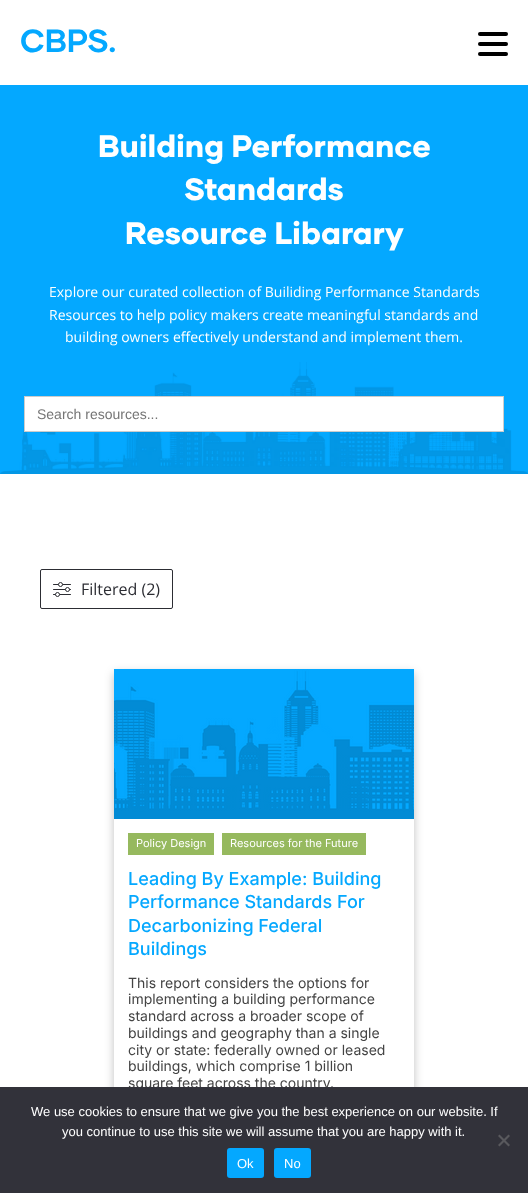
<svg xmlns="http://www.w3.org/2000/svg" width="528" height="1193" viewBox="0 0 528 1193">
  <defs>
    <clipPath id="clip1"><path d="M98 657H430V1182H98ZM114 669H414V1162H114Z" clip-rule="evenodd"/></clipPath>
    <filter id="blur1" x="-50%" y="-200%" width="200%" height="500%"><feGaussianBlur stdDeviation="5"/></filter>
  </defs>
  <rect width="100%" height="100%" fill="#ffffff"/>
  <text x="20" y="52" font-family="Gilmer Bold" font-size="32" font-weight="bold" fill="#04a8ff">CBPS.</text>
  <rect x="478" y="32" width="30" height="4" rx="2" fill="#000000"/>
  <rect x="478" y="42" width="30" height="4" rx="2" fill="#000000"/>
  <rect x="478" y="52" width="30" height="4" rx="2" fill="#000000"/>
  <rect x="0" y="85" width="528" height="389" fill="#04a8ff"/>
  <text x="98" y="157" font-family="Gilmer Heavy" font-size="31" font-weight="900" fill="#ffffff">Building Performance</text>
  <text x="184" y="200" font-family="Gilmer Heavy" font-size="31" font-weight="900" fill="#ffffff">Standards</text>
  <text x="125" y="244" font-family="Gilmer Heavy" font-size="31" font-weight="900" fill="#ffffff">Resource Libarary</text>
  <text x="49" y="297" font-family="Open Sans" font-size="14" fill="#ffffff">Explore our curated collection of Builiding Performance Standards</text>
  <text x="49" y="320" font-family="Open Sans" font-size="14" fill="#ffffff">Resources to help policy makers create meaningful standards and</text>
  <text x="65" y="342" font-family="Open Sans" font-size="14" fill="#ffffff">building owners effectively understand and implement them.</text>
  <image x="0" y="362" width="528" height="112" href="img1.png"/>
  <rect x="24.5" y="396.5" width="479" height="35" fill="#ffffff" stroke="#cccccc"/>
  <text x="37" y="419" font-family="Liberation Sans" font-size="14" fill="#757575">Search resources...</text>
  <rect x="40.5" y="569.5" width="132" height="39" rx="1.5" fill="none" stroke="#2c2d33"/>
  <rect x="53" y="584" width="18" height="1" rx="0.5" fill="#2c2d33"/>
  <circle cx="60.5" cy="584.5" r="2" fill="#ffffff" stroke="#2c2d33"/>
  <rect x="53" y="589" width="18" height="1" rx="0.5" fill="#2c2d33"/>
  <circle cx="67.5" cy="589.5" r="2" fill="#ffffff" stroke="#2c2d33"/>
  <rect x="53" y="594" width="18" height="1" rx="0.5" fill="#2c2d33"/>
  <circle cx="57.5" cy="594.5" r="2" fill="#ffffff" stroke="#2c2d33"/>
  <text x="81" y="595" font-family="Open Sans" font-size="16" fill="#2c2d33">Filtered (2)</text>
  <g clip-path="url(#clip1)">
    <rect x="114" y="673" width="300" height="493" fill="#000000" fill-opacity="0.25" filter="url(#blur1)"/>
  </g>
  <image x="114" y="669" width="300" height="150" href="img2.png"/>
  <rect x="128" y="833" width="86" height="22" fill="#96b95e"/>
  <text x="136" y="847" font-family="Inter" font-size="11" fill="#ffffff">Policy Design</text>
  <rect x="222" y="833" width="144" height="22" fill="#96b95e"/>
  <text x="230" y="847" font-family="Inter" font-size="11" fill="#ffffff">Resources for the Future</text>
  <text x="128" y="885" font-family="Inter" font-size="18" font-weight="500" fill="#04a8ff">Leading By Example: Building</text>
  <text x="128" y="908" font-family="Inter" font-size="18" font-weight="500" fill="#04a8ff">Performance Standards For</text>
  <text x="128" y="932" font-family="Inter" font-size="18" font-weight="500" fill="#04a8ff">Decarbonizing Federal</text>
  <text x="128" y="955" font-family="Inter" font-size="18" font-weight="500" fill="#04a8ff">Buildings</text>
  <text x="128" y="988" font-family="Inter" font-size="14" fill="#444444">This report considers the options for</text>
  <text x="128" y="1004" font-family="Inter" font-size="14" fill="#444444">implementing a building performance</text>
  <text x="128" y="1021" font-family="Inter" font-size="14" fill="#444444">standard across a broader scope of</text>
  <text x="128" y="1038" font-family="Inter" font-size="14" fill="#444444">buildings and geography than a single</text>
  <text x="128" y="1055" font-family="Inter" font-size="14" fill="#444444">city or state: federally owned or leased</text>
  <text x="128" y="1071" font-family="Inter" font-size="14" fill="#444444">buildings, which comprise 1 billion</text>
  <text x="128" y="1088" font-family="Inter" font-size="14" fill="#444444">square feet across the country.</text>
  <rect x="0" y="1087" width="528" height="106" fill="#32323a"/>
  <text x="31" y="1116" font-family="Liberation Sans" font-size="13" fill="#ffffff">We use cookies to ensure that we give you the best experience on our website. If</text>
  <text x="62" y="1136" font-family="Liberation Sans" font-size="13" fill="#ffffff">you continue to use this site we will assume that you are happy with it.</text>
  <path d="M508.5 1134.5L510 1136L499.5 1146.5L498 1145Z" fill="#59595d"/>
  <path d="M498 1136L499.5 1134.5L510 1145L508.5 1146.5Z" fill="#59595d"/>
  <rect x="227" y="1148" width="37" height="30" rx="3" fill="#04a8ff"/>
  <text x="237" y="1168" font-family="Liberation Sans" font-size="13" fill="#ffffff">Ok</text>
  <rect x="274" y="1148" width="37" height="30" rx="3" fill="#04a8ff"/>
  <text x="284" y="1168" font-family="Liberation Sans" font-size="13" fill="#ffffff">No</text>
</svg>
